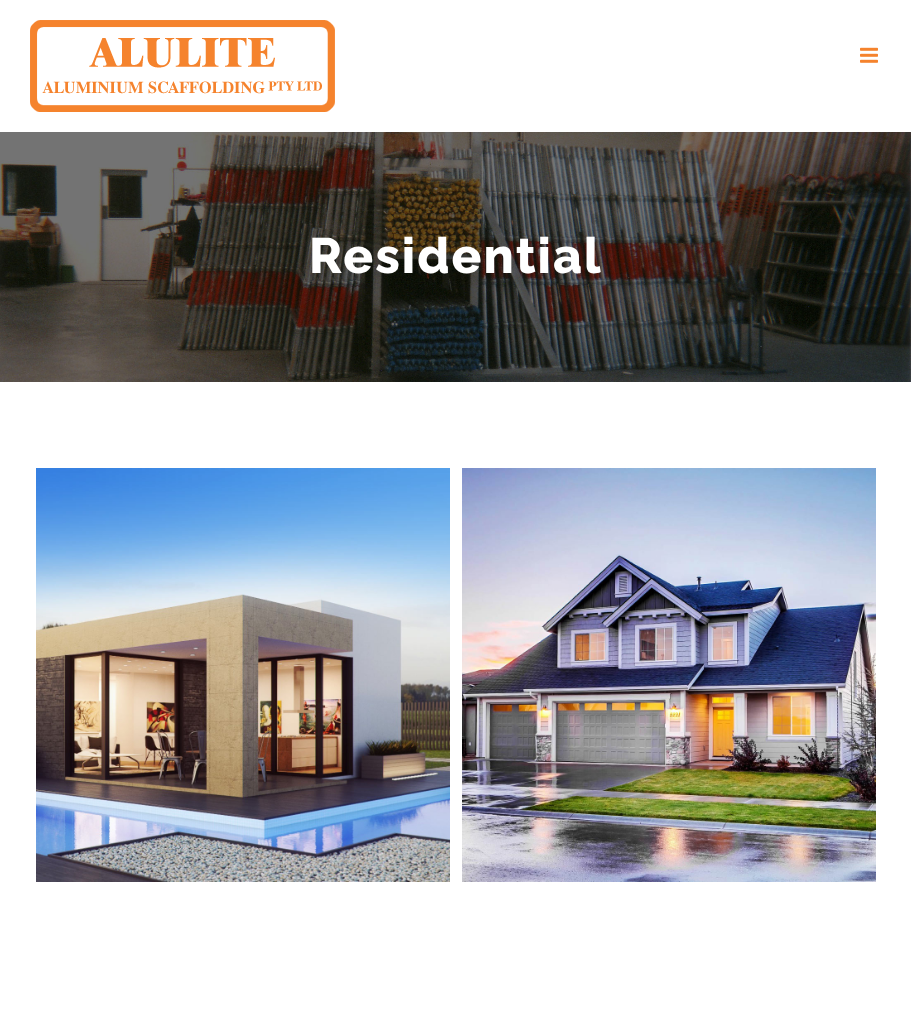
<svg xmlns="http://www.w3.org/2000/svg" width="911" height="1014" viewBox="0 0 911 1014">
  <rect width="100%" height="100%" fill="#ffffff"/>
  <image x="30" y="20" width="305" height="92" href="img1.png"/>
  <image x="860" y="47" width="18" height="16" href="img2.png"/>
  <image x="0" y="132" width="911" height="250" href="img3.png"/>
  <text x="309" y="273" font-family="Raleway" font-size="49.5" font-weight="100" letter-spacing="2" fill="#ffffff">Residential</text>
  <image x="36" y="468" width="414" height="414" href="img4.png"/>
  <image x="462" y="468" width="414" height="414" href="img5.png"/>
</svg>
